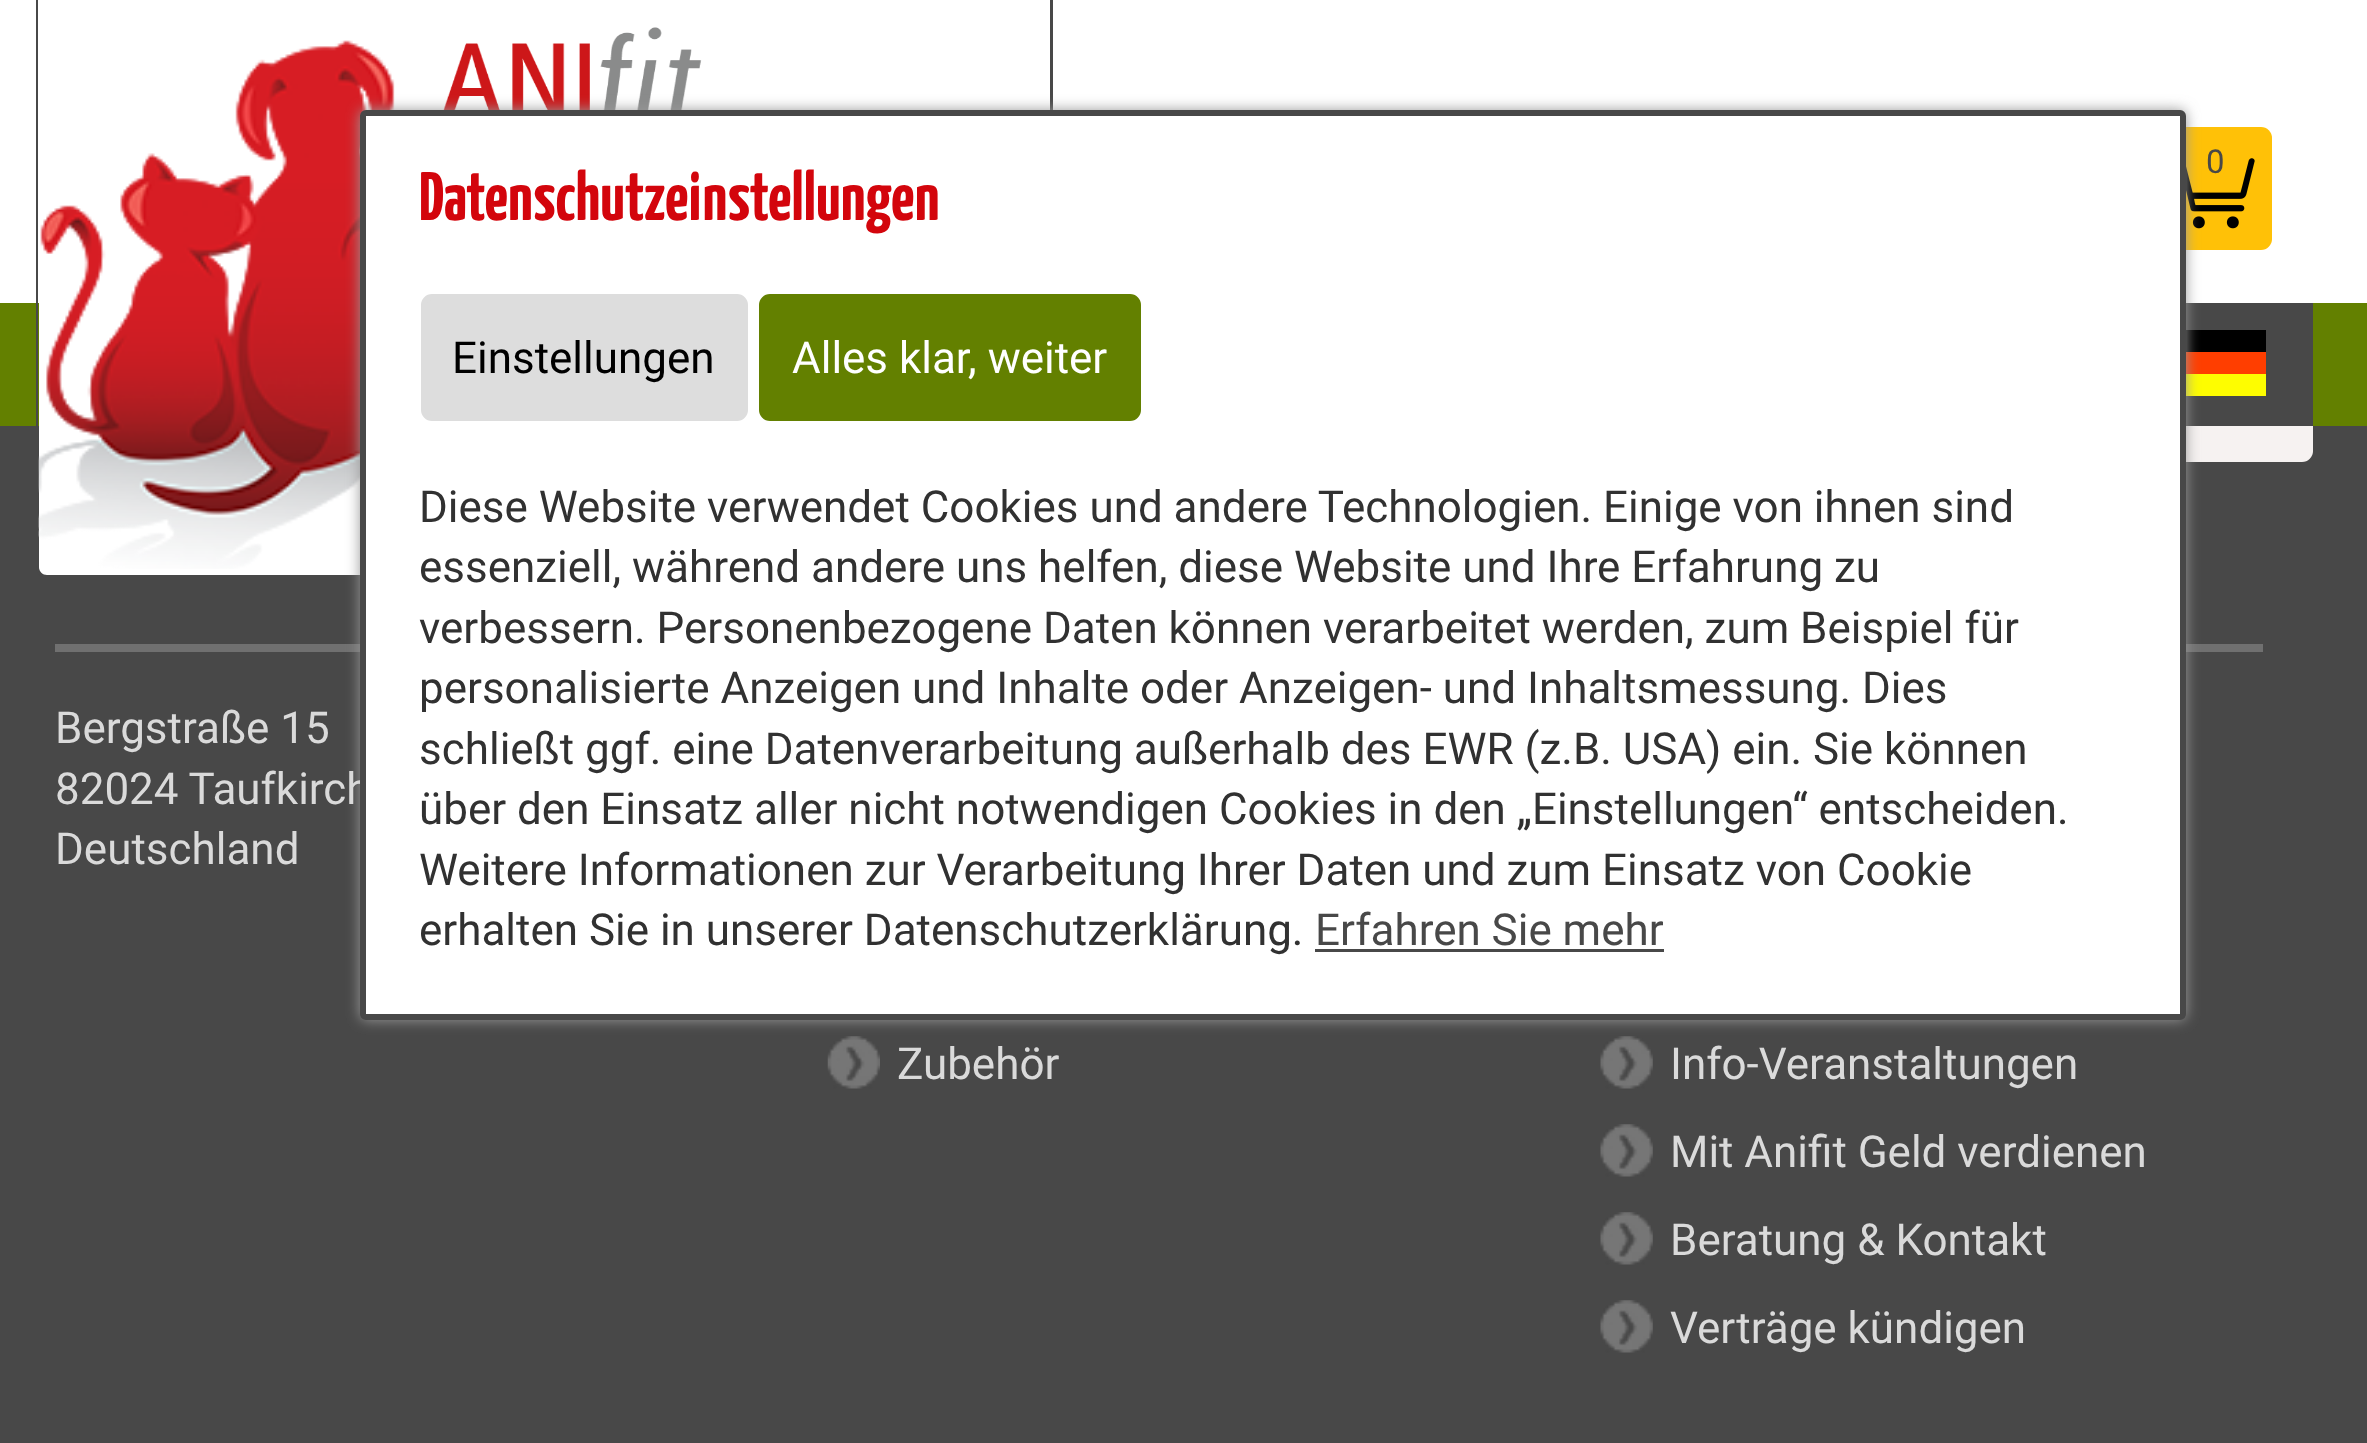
<svg xmlns="http://www.w3.org/2000/svg" width="2367" height="1443" viewBox="0 0 2367 1443">
  <defs>
    <filter id="blur1" x="-50%" y="-200%" width="200%" height="500%"><feGaussianBlur stdDeviation="7"/></filter>
  </defs>
  <rect width="100%" height="100%" fill="#484848"/>
  <rect x="55" y="-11" width="2258" height="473" rx="11" fill="#f6f2f1"/>
  <rect x="0" y="0" width="2367" height="303" fill="#ffffff"/>
  <rect x="0" y="303" width="2367" height="123" fill="#638000"/>
  <path d="M412 0H1053V566C1053 573 1048 578 1042 578H424C417 578 412 573 412 566ZM412 0H1050V566C1050 571 1047 575 1042 575H424C417 575 412 571 412 566Z" fill="#484848" fill-rule="evenodd"/>
  <path d="M36 0H418V578H47C41 578 36 573 36 566ZM38 0H418V575H47C42 575 38 571 38 566Z" fill="#484848" fill-rule="evenodd"/>
  <path d="M39 0H418V575H47C42.5 575 39 571.5 39 567Z" fill="#ffffff"/>
  <image x="38" y="40" width="357" height="529" href="img1.png"/>
  <image x="443" y="27" width="259" height="83" href="img2.png"/>
  <rect x="2148" y="127" width="124" height="123" rx="11" fill="#ffc107"/>
  <image x="2186" y="158" width="69" height="71" href="img3.png"/>
  <text x="2206" y="173" font-family="Roboto" font-size="33" fill="#484848">0</text>
  <rect x="2186" y="303" width="127" height="123" fill="#484848"/>
  <rect x="2186" y="330" width="80" height="22" fill="#000000"/>
  <rect x="2186" y="352" width="80" height="22" fill="#ff3e00"/>
  <rect x="2186" y="374" width="80" height="22" fill="#fefd00"/>
  <rect x="55" y="644" width="305" height="8" fill="#707070"/>
  <image x="827" y="1036" width="53" height="53" href="img4.png"/>
  <rect x="2186" y="644" width="77" height="8" fill="#707070"/>
  <image x="1600" y="1036" width="53" height="53" href="img5.png"/>
  <rect x="360" y="110" width="1826" height="910" rx="6" fill="#999999" filter="url(#blur1)"/>
  <text x="55" y="804" font-family="Roboto" font-size="44" fill="#dadada">82024 Taufkirch</text>
  <rect x="363" y="113" width="1820" height="904" rx="3" fill="#ffffff" stroke="#484848" stroke-width="6"/>
  <text x="419" y="220" font-family="Yanone Kaffeesatz" font-size="68.75" font-weight="bold" fill="#d3050c">Datenschutzeinstellungen</text>
  <rect x="424" y="297" width="321" height="121" rx="8" fill="#dddddd" stroke="#dddddd" stroke-width="6"/>
  <text x="452" y="373" font-family="Roboto" font-size="44" fill="#000000">Einstellungen</text>
  <rect x="762" y="297" width="376" height="121" rx="8" fill="#638000" stroke="#638000" stroke-width="6"/>
  <text x="792" y="373" font-family="Roboto" font-size="44" fill="#ffffff">Alles klar, weiter</text>
  <text x="419" y="522" font-family="Roboto" font-size="44" fill="#313131">Diese Website verwendet Cookies und andere Technologien. Einige von ihnen sind</text>
  <text x="419" y="582" font-family="Roboto" font-size="44" fill="#313131">essenziell, während andere uns helfen, diese Website und Ihre Erfahrung zu</text>
  <text x="419" y="643" font-family="Roboto" font-size="44" fill="#313131">verbessern. Personenbezogene Daten können verarbeitet werden, zum Beispiel für</text>
  <text x="419" y="703" font-family="Roboto" font-size="44" fill="#313131">personalisierte Anzeigen und Inhalte oder Anzeigen- und Inhaltsmessung. Dies</text>
  <text x="419" y="764" font-family="Roboto" font-size="44" fill="#313131">schließt ggf. eine Datenverarbeitung außerhalb des EWR (z.B. USA) ein. Sie können</text>
  <text x="419" y="824" font-family="Roboto" font-size="44" fill="#313131">über den Einsatz aller nicht notwendigen Cookies in den „Einstellungen“ entscheiden.</text>
  <text x="419" y="885" font-family="Roboto" font-size="44" fill="#313131">Weitere Informationen zur Verarbeitung Ihrer Daten und zum Einsatz von Cookie</text>
  <text x="419" y="945" font-family="Roboto" font-size="44" fill="#313131">erhalten Sie in unserer Datenschutzerklärung.</text>
  <text x="1315" y="945" font-family="Roboto" font-size="44" fill="#484848">Erfahren Sie mehr</text>
  <rect x="1315" y="949" width="349" height="3" fill="#484848"/>
  <text x="55" y="743" font-family="Roboto" font-size="44" fill="#dadada">Bergstraße 15</text>
  <text x="55" y="864" font-family="Roboto" font-size="44" fill="#dadada">Deutschland</text>
  <text x="897" y="1079" font-family="Roboto" font-size="44" fill="#dadada">Zubehör</text>
  <text x="1670" y="1079" font-family="Roboto" font-size="44" fill="#dadada">Info-Veranstaltungen</text>
  <image x="1600" y="1124" width="53" height="53" href="img5.png"/>
  <text x="1670" y="1167" font-family="Roboto" font-size="44" fill="#dadada">Mit Anifit Geld verdienen</text>
  <image x="1600" y="1212" width="53" height="53" href="img5.png"/>
  <text x="1670" y="1255" font-family="Roboto" font-size="44" fill="#dadada">Beratung &amp; Kontakt</text>
  <image x="1600" y="1300" width="53" height="53" href="img5.png"/>
  <text x="1670" y="1343" font-family="Roboto" font-size="44" fill="#dadada">Verträge kündigen</text>
</svg>
